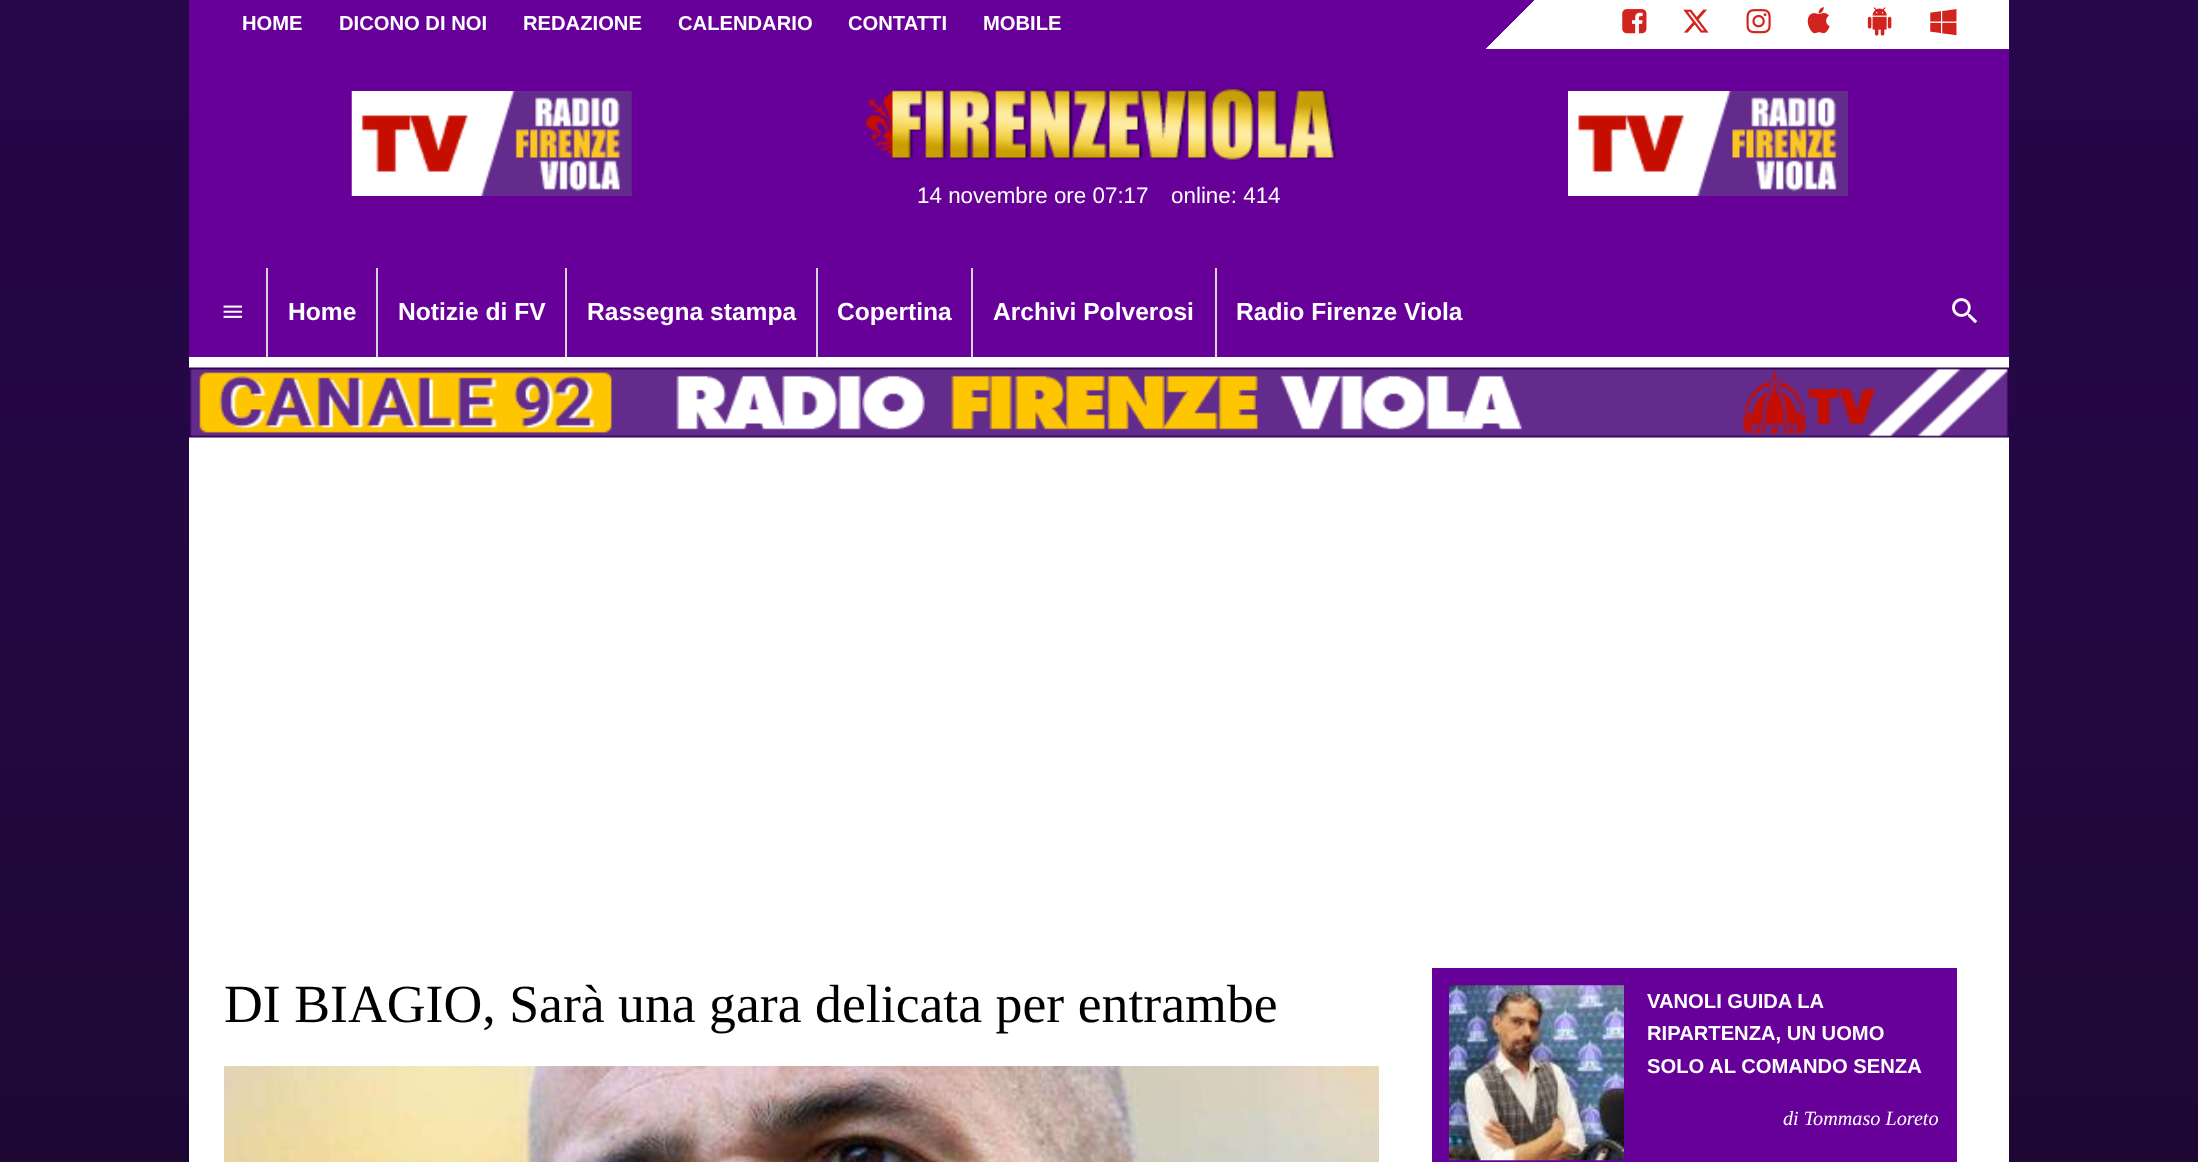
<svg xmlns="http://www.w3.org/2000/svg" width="2198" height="1162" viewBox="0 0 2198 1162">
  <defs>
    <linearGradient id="g1" gradientUnits="userSpaceOnUse" x1="632" y1="-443" x2="1566" y2="492"><stop offset="0.72" stop-color="#660099"/><stop offset="0.72" stop-color="#ffffff"/><stop offset="1" stop-color="#ffffff"/></linearGradient>
  </defs>
  <rect width="100%" height="100%" fill="#ffffff"/>
  <image x="0" y="0" width="2198" height="1162" href="img1.png"/>
  <rect x="189" y="357" width="1820" height="805" fill="#ffffff"/>
  <rect x="189" y="0" width="1820" height="49" fill="url(#g1)"/>
  <text x="242" y="30" font-family="Liberation Sans" font-size="20.2" font-weight="bold" fill="#ffffff">HOME</text>
  <text x="339" y="30" font-family="Liberation Sans" font-size="20.2" font-weight="bold" fill="#ffffff">DICONO DI NOI</text>
  <text x="523" y="30" font-family="Liberation Sans" font-size="20.2" font-weight="bold" fill="#ffffff">REDAZIONE</text>
  <text x="678" y="30" font-family="Liberation Sans" font-size="20.2" font-weight="bold" fill="#ffffff">CALENDARIO</text>
  <text x="848" y="30" font-family="Liberation Sans" font-size="20.2" font-weight="bold" fill="#ffffff">CONTATTI</text>
  <text x="983" y="30" font-family="Liberation Sans" font-size="20.2" font-weight="bold" fill="#ffffff">MOBILE</text>
  <image x="1622" y="9" width="25" height="25" href="img2.png"/>
  <image x="1683" y="9" width="26" height="24" href="img3.png"/>
  <image x="1746" y="9" width="25" height="25" href="img4.png"/>
  <image x="1807" y="7" width="23" height="27" href="img5.png"/>
  <image x="1867" y="7" width="25" height="29" href="img6.png"/>
  <image x="1930" y="9" width="27" height="27" href="img7.png"/>
  <rect x="189" y="49" width="1820" height="308" fill="#660099"/>
  <image x="351" y="91" width="281" height="105" href="img8.png"/>
  <image x="865" y="87" width="472" height="75" href="img9.png"/>
  <text x="917" y="203" font-family="Liberation Sans" font-size="22.4" fill="#ffffff">14 novembre ore 07:17</text>
  <text x="1171" y="203" font-family="Liberation Sans" font-size="22.4" fill="#ffffff">online: 414</text>
  <image x="1568" y="91" width="280" height="105" href="img10.png"/>
  <image x="223" y="305" width="20" height="13" href="img11.png"/>
  <rect x="266" y="268" width="2" height="89" fill="#d6d6d6"/>
  <text x="288" y="320" font-family="Liberation Sans" font-size="24.6" font-weight="bold" fill="#ffffff">Home</text>
  <rect x="376" y="268" width="2" height="89" fill="#d6d6d6"/>
  <text x="398" y="320" font-family="Liberation Sans" font-size="24.6" font-weight="bold" fill="#ffffff">Notizie di FV</text>
  <rect x="565" y="268" width="2" height="89" fill="#d6d6d6"/>
  <text x="587" y="320" font-family="Liberation Sans" font-size="24.6" font-weight="bold" fill="#ffffff">Rassegna stampa</text>
  <rect x="816" y="268" width="2" height="89" fill="#d6d6d6"/>
  <text x="837" y="320" font-family="Liberation Sans" font-size="24.6" font-weight="bold" fill="#ffffff">Copertina</text>
  <rect x="971" y="268" width="2" height="89" fill="#d6d6d6"/>
  <text x="993" y="320" font-family="Liberation Sans" font-size="24.6" font-weight="bold" fill="#ffffff">Archivi Polverosi</text>
  <rect x="1215" y="268" width="2" height="89" fill="#d6d6d6"/>
  <text x="1236" y="320" font-family="Liberation Sans" font-size="24.6" font-weight="bold" fill="#ffffff">Radio Firenze Viola</text>
  <image x="1952" y="298" width="26" height="26" href="img12.png"/>
  <image x="189" y="367" width="1820" height="71" href="img13.png"/>
  <text x="224" y="1022" font-family="Liberation Serif" font-size="53.75" fill="#000000">DI BIAGIO, Sarà una gara delicata per entrambe</text>
  <image x="224" y="1066" width="1155" height="96" href="img14.png"/>
  <rect x="1432" y="968" width="525" height="194" fill="#660099"/>
  <image x="1449" y="985" width="175" height="176" href="img15.png"/>
  <text x="1647" y="1008" font-family="Liberation Sans" font-size="20.2" font-weight="bold" fill="#ffffff">VANOLI GUIDA LA</text>
  <text x="1647" y="1040" font-family="Liberation Sans" font-size="20.2" font-weight="bold" fill="#ffffff">RIPARTENZA, UN UOMO</text>
  <text x="1647" y="1073" font-family="Liberation Sans" font-size="20.2" font-weight="bold" fill="#ffffff">SOLO AL COMANDO SENZA</text>
  <text x="1783" y="1125" font-family="Liberation Serif" font-size="20.2" font-style="italic" fill="#ffffff">di Tommaso Loreto</text>
</svg>
